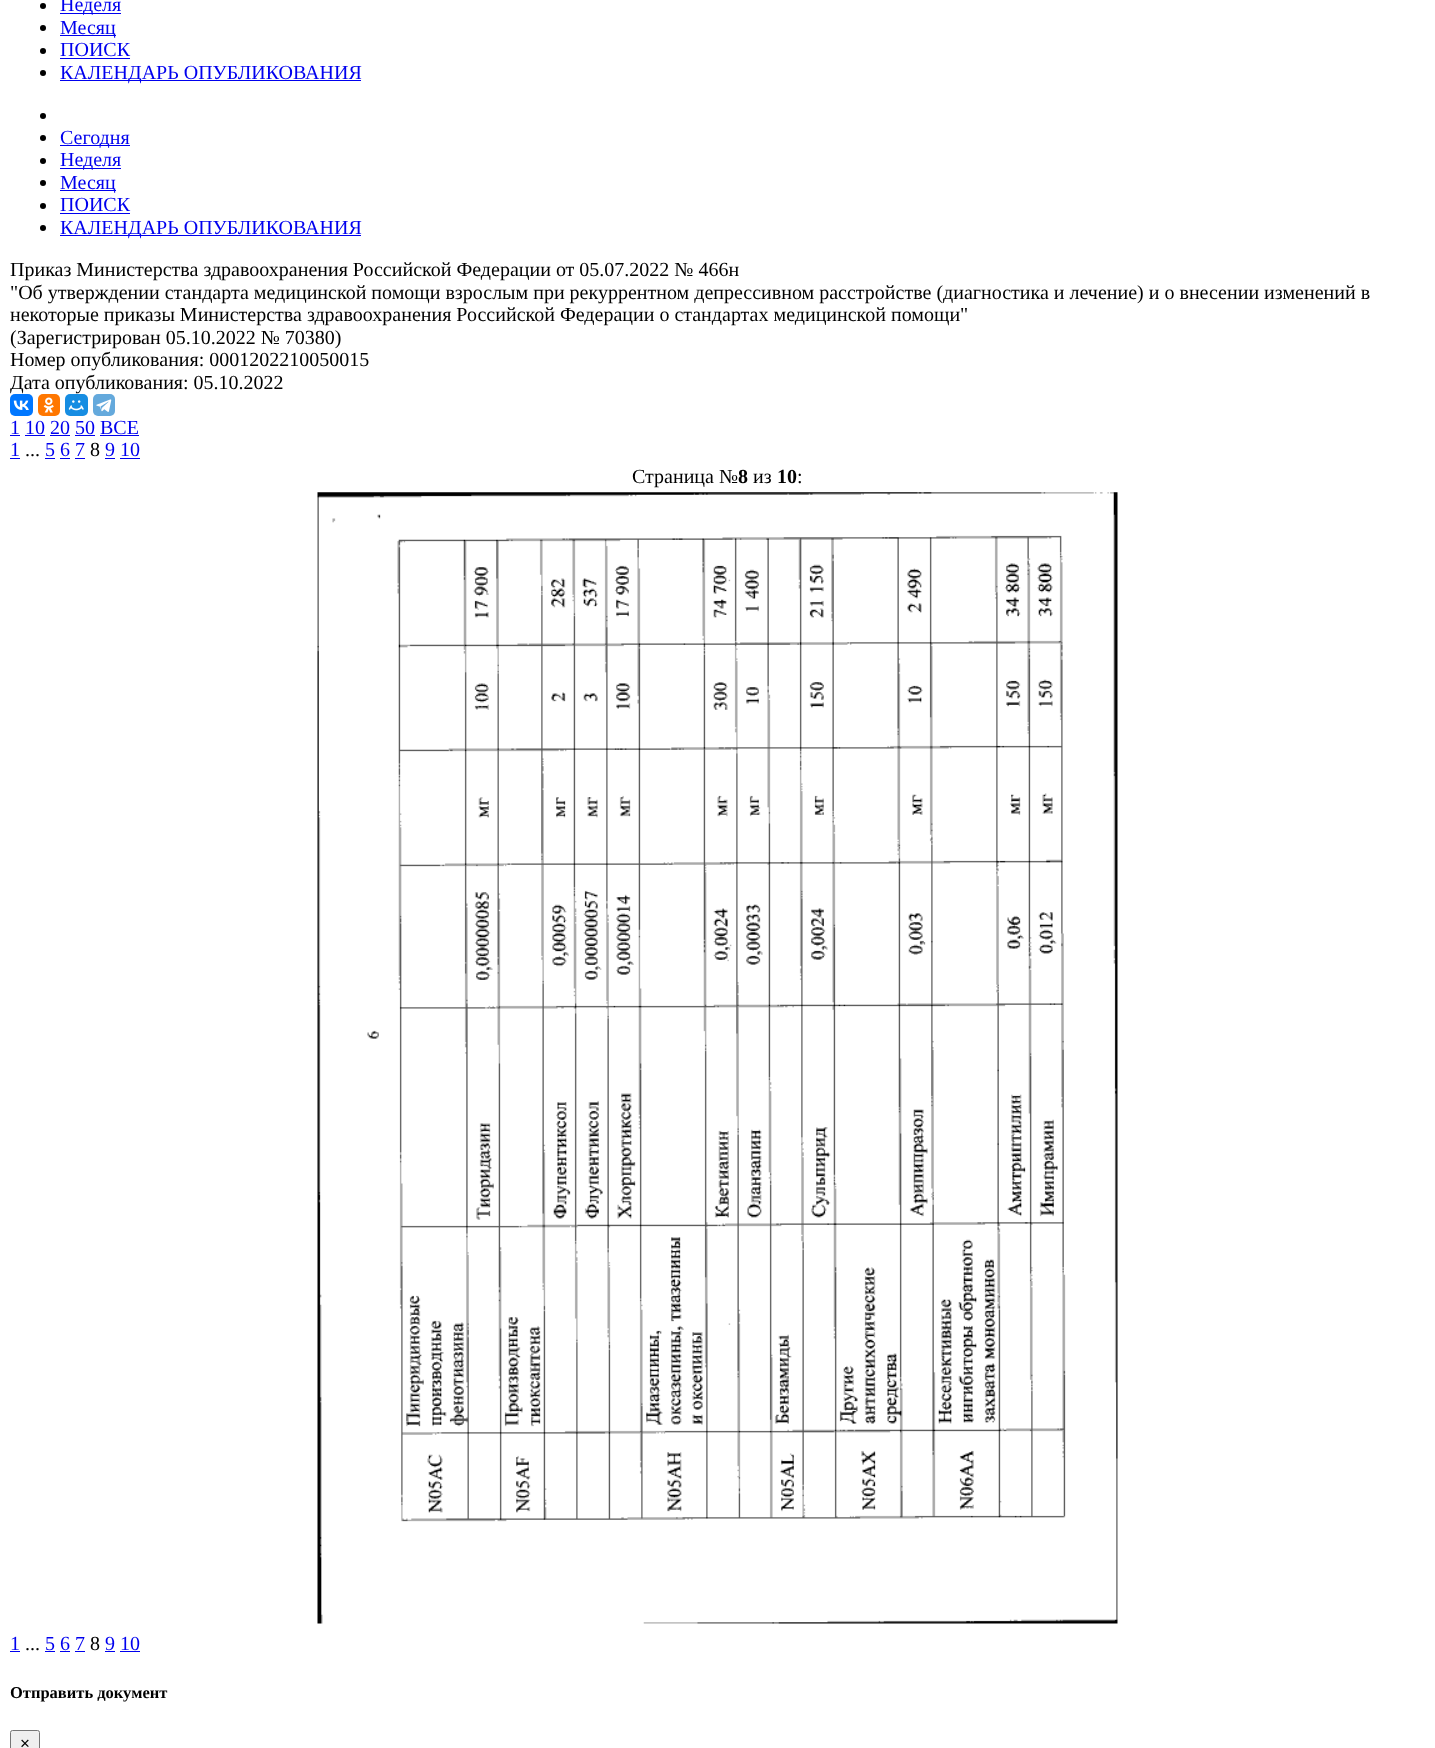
<svg xmlns="http://www.w3.org/2000/svg" width="1435" height="1748" viewBox="0 0 1435 1748">
  <rect width="100%" height="100%" fill="#ffffff"/>
  <circle cx="43" cy="6" r="3" fill="#000000"/>
  <rect x="60" y="13" width="61" height="1" fill="#0000ee"/>
  <text x="60" y="11" font-family="Liberation Serif" font-size="20" fill="#0000ee">Неделя</text>
  <circle cx="43" cy="28" r="3" fill="#000000"/>
  <rect x="60" y="35" width="56" height="1" fill="#0000ee"/>
  <text x="60" y="34" font-family="Liberation Serif" font-size="20" fill="#0000ee">Месяц</text>
  <circle cx="43" cy="51" r="3" fill="#000000"/>
  <text x="60" y="56" font-family="Liberation Serif" font-size="20" fill="#0000ee">ПОИСК</text>
  <rect x="60" y="58" width="70" height="1" fill="#0000ee"/>
  <circle cx="43" cy="73" r="3" fill="#000000"/>
  <rect x="60" y="80" width="301" height="1" fill="#0000ee"/>
  <text x="60" y="79" font-family="Liberation Serif" font-size="20" fill="#0000ee">КАЛЕНДАРЬ ОПУБЛИКОВАНИЯ</text>
  <circle cx="43" cy="116" r="3" fill="#000000"/>
  <circle cx="43" cy="138" r="3" fill="#000000"/>
  <rect x="60" y="145" width="70" height="1" fill="#0000ee"/>
  <text x="60" y="144" font-family="Liberation Serif" font-size="20" fill="#0000ee">Сегодня</text>
  <circle cx="43" cy="161" r="3" fill="#000000"/>
  <rect x="60" y="168" width="61" height="1" fill="#0000ee"/>
  <text x="60" y="166" font-family="Liberation Serif" font-size="20" fill="#0000ee">Неделя</text>
  <circle cx="43" cy="183" r="3" fill="#000000"/>
  <rect x="60" y="190" width="56" height="1" fill="#0000ee"/>
  <text x="60" y="189" font-family="Liberation Serif" font-size="20" fill="#0000ee">Месяц</text>
  <circle cx="43" cy="206" r="3" fill="#000000"/>
  <text x="60" y="211" font-family="Liberation Serif" font-size="20" fill="#0000ee">ПОИСК</text>
  <rect x="60" y="213" width="70" height="1" fill="#0000ee"/>
  <circle cx="43" cy="228" r="3" fill="#000000"/>
  <rect x="60" y="235" width="301" height="1" fill="#0000ee"/>
  <text x="60" y="234" font-family="Liberation Serif" font-size="20" fill="#0000ee">КАЛЕНДАРЬ ОПУБЛИКОВАНИЯ</text>
  <text x="10" y="276" font-family="Liberation Serif" font-size="20" fill="#000000">Приказ Министерства здравоохранения Российской Федерации от 05.07.2022 № 466н</text>
  <text x="10" y="299" font-family="Liberation Serif" font-size="20" fill="#000000">"Об утверждении стандарта медицинской помощи взрослым при рекуррентном депрессивном расстройстве (диагностика и лечение) и о внесении изменений в</text>
  <text x="10" y="321" font-family="Liberation Serif" font-size="20" fill="#000000">некоторые приказы Министерства здравоохранения Российской Федерации о стандартах медицинской помощи"</text>
  <text x="10" y="344" font-family="Liberation Serif" font-size="20" fill="#000000">(Зарегистрирован 05.10.2022 № 70380)</text>
  <text x="10" y="366" font-family="Liberation Serif" font-size="20" fill="#000000">Номер опубликования: 0001202210050015</text>
  <text x="10" y="389" font-family="Liberation Serif" font-size="20" fill="#000000">Дата опубликования: 05.10.2022</text>
  <rect x="10" y="394" width="23" height="22" rx="5" fill="#0077ff"/>
  <image x="13" y="400" width="16" height="10" href="img1.png"/>
  <rect x="38" y="394" width="22" height="22" rx="5" fill="#ff7700"/>
  <image x="43" y="397" width="11" height="16" href="img2.png"/>
  <rect x="65" y="394" width="23" height="22" rx="5" fill="#168de2"/>
  <image x="68" y="400" width="16" height="11" href="img3.png"/>
  <rect x="93" y="394" width="22" height="22" rx="5" fill="#64a9dc"/>
  <image x="96" y="399" width="16" height="13" href="img4.png"/>
  <text x="10" y="434" font-family="Liberation Serif" font-size="20" fill="#0000ee">1 10 20 50 ВСЕ</text>
  <rect x="10" y="435" width="10" height="1" fill="#0000ee"/>
  <rect x="25" y="435" width="20" height="1" fill="#0000ee"/>
  <rect x="50" y="435" width="20" height="1" fill="#0000ee"/>
  <rect x="75" y="435" width="20" height="1" fill="#0000ee"/>
  <rect x="100" y="435" width="39" height="1" fill="#0000ee"/>
  <text x="10" y="456" font-family="Liberation Serif" font-size="20" fill="#0000ee">1</text>
  <rect x="10" y="458" width="10" height="1" fill="#0000ee"/>
  <text x="25" y="456" font-family="Liberation Serif" font-size="20" fill="#000000">...</text>
  <text x="45" y="456" font-family="Liberation Serif" font-size="20" fill="#0000ee">5 6 7</text>
  <rect x="45" y="458" width="10" height="1" fill="#0000ee"/>
  <text x="90" y="456" font-family="Liberation Serif" font-size="20" fill="#000000">8</text>
  <text x="105" y="456" font-family="Liberation Serif" font-size="20" fill="#0000ee">9 10</text>
  <rect x="105" y="458" width="10" height="1" fill="#0000ee"/>
  <rect x="60" y="458" width="10" height="1" fill="#0000ee"/>
  <rect x="75" y="458" width="10" height="1" fill="#0000ee"/>
  <rect x="120" y="458" width="20" height="1" fill="#0000ee"/>
  <text x="632" y="483" font-family="Liberation Serif" font-size="20" fill="#000000">Страница №</text>
  <text x="738" y="483" font-family="Liberation Serif" font-size="20" font-weight="bold" fill="#000000">8</text>
  <text x="753" y="483" font-family="Liberation Serif" font-size="20" fill="#000000">из</text>
  <text x="777" y="483" font-family="Liberation Serif" font-size="20" font-weight="bold" fill="#000000">10</text>
  <text x="797" y="483" font-family="Liberation Serif" font-size="20" fill="#000000">:</text>
  <image x="317" y="492" width="801" height="1132" href="img5.png"/>
  <text x="10" y="1650" font-family="Liberation Serif" font-size="20" fill="#0000ee">1</text>
  <rect x="10" y="1651" width="10" height="1" fill="#0000ee"/>
  <text x="25" y="1650" font-family="Liberation Serif" font-size="20" fill="#000000">...</text>
  <text x="45" y="1650" font-family="Liberation Serif" font-size="20" fill="#0000ee">5 6 7</text>
  <rect x="45" y="1651" width="10" height="1" fill="#0000ee"/>
  <text x="90" y="1650" font-family="Liberation Serif" font-size="20" fill="#000000">8</text>
  <text x="105" y="1650" font-family="Liberation Serif" font-size="20" fill="#0000ee">9 10</text>
  <rect x="105" y="1651" width="10" height="1" fill="#0000ee"/>
  <rect x="60" y="1651" width="10" height="1" fill="#0000ee"/>
  <rect x="75" y="1651" width="10" height="1" fill="#0000ee"/>
  <rect x="120" y="1651" width="20" height="1" fill="#0000ee"/>
  <text x="10" y="1698" font-family="Liberation Serif" font-size="16.5" font-weight="bold" fill="#000000">Отправить документ</text>
  <rect x="10.5" y="1730.5" width="29" height="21" rx="2" fill="#efefef" stroke="#767676"/>
  <text x="20" y="1749" font-family="Liberation Sans" font-size="17" fill="#000000">×</text>
</svg>
